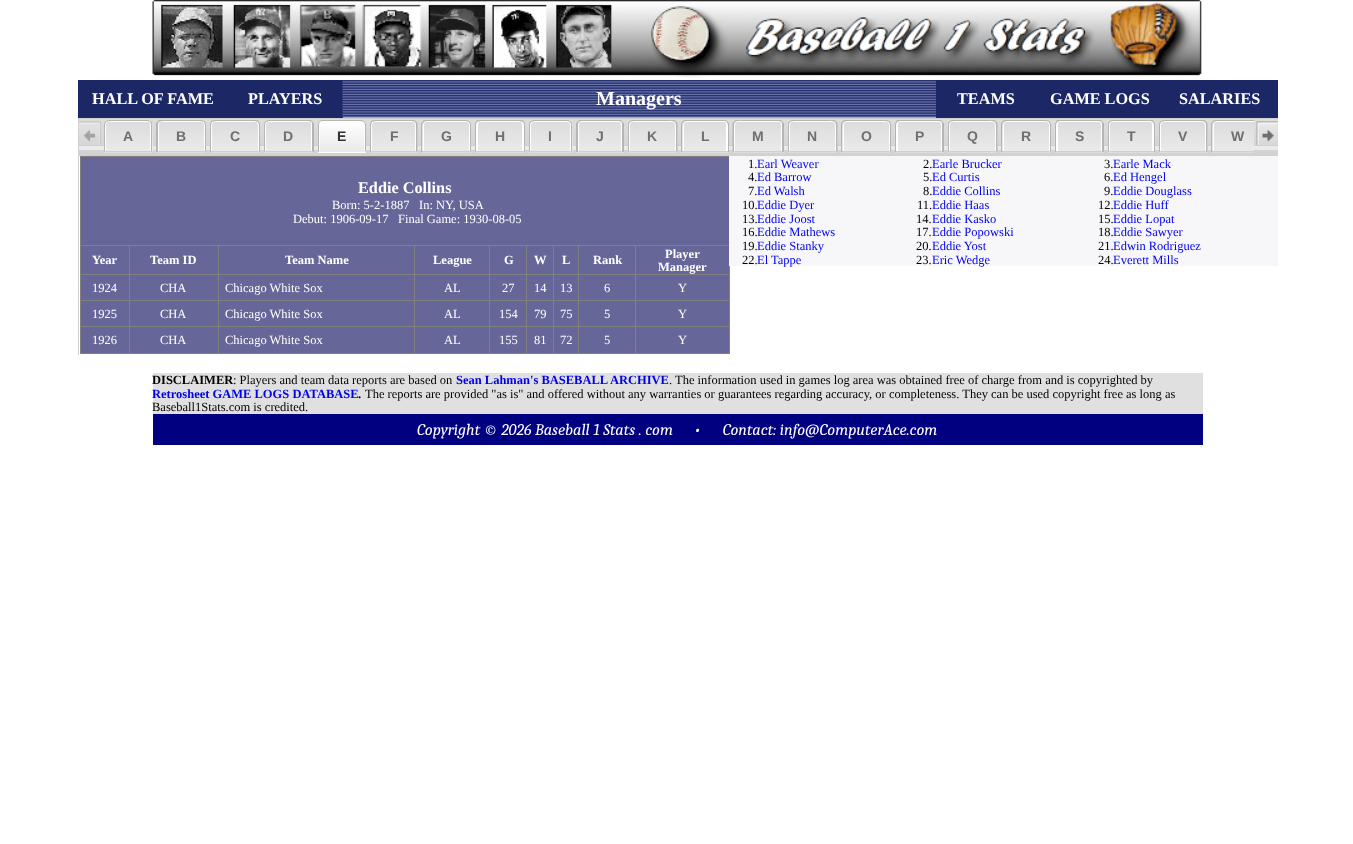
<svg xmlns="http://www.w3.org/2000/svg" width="1353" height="844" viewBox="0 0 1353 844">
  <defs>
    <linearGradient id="g1" gradientUnits="userSpaceOnUse" x1="678" y1="117" x2="678" y2="155"><stop offset="0" stop-color="#dfdede"/><stop offset="1" stop-color="#d2d2d2"/></linearGradient>
    <clipPath id="clip1"><path d="M109 120H148C151 120 153 122 153 125V153H104V125C104 122 106 120 109 120Z"/></clipPath>
    <linearGradient id="g2" gradientUnits="userSpaceOnUse" x1="128" y1="91" x2="128" y2="121"><stop offset="0" stop-color="#dcdcdc"/><stop offset="1" stop-color="#eaeaea"/></linearGradient>
    <linearGradient id="g3" gradientUnits="userSpaceOnUse" x1="128" y1="121" x2="128" y2="151"><stop offset="0" stop-color="#dcdcdc"/><stop offset="1" stop-color="#eaeaea"/></linearGradient>
    <linearGradient id="g4" gradientUnits="userSpaceOnUse" x1="128" y1="151" x2="128" y2="181"><stop offset="0" stop-color="#dcdcdc"/><stop offset="1" stop-color="#eaeaea"/></linearGradient>
    <clipPath id="clip2"><path d="M161 120H201C204 120 206 122 206 125V153H156V125C156 122 158 120 161 120Z"/></clipPath>
    <linearGradient id="g5" gradientUnits="userSpaceOnUse" x1="181" y1="121" x2="181" y2="151"><stop offset="0" stop-color="#dcdcdc"/><stop offset="1" stop-color="#eaeaea"/></linearGradient>
    <linearGradient id="g6" gradientUnits="userSpaceOnUse" x1="181" y1="151" x2="181" y2="181"><stop offset="0" stop-color="#dcdcdc"/><stop offset="1" stop-color="#eaeaea"/></linearGradient>
    <clipPath id="clip3"><path d="M215 120H255C258 120 260 122 260 125V153H210V125C210 122 212 120 215 120Z"/></clipPath>
    <linearGradient id="g7" gradientUnits="userSpaceOnUse" x1="235" y1="121" x2="235" y2="151"><stop offset="0" stop-color="#dcdcdc"/><stop offset="1" stop-color="#eaeaea"/></linearGradient>
    <linearGradient id="g8" gradientUnits="userSpaceOnUse" x1="235" y1="151" x2="235" y2="181"><stop offset="0" stop-color="#dcdcdc"/><stop offset="1" stop-color="#eaeaea"/></linearGradient>
    <clipPath id="clip4"><path d="M269 120H309C312 120 314 122 314 125V153H264V125C264 122 266 120 269 120Z"/></clipPath>
    <linearGradient id="g9" gradientUnits="userSpaceOnUse" x1="289" y1="121" x2="289" y2="151"><stop offset="0" stop-color="#dcdcdc"/><stop offset="1" stop-color="#eaeaea"/></linearGradient>
    <linearGradient id="g10" gradientUnits="userSpaceOnUse" x1="289" y1="151" x2="289" y2="181"><stop offset="0" stop-color="#dcdcdc"/><stop offset="1" stop-color="#eaeaea"/></linearGradient>
    <clipPath id="clip5"><path d="M323 120H361C364 120 366 122 366 125V153H318V125C318 122 320 120 323 120Z"/></clipPath>
    <linearGradient id="g11" gradientUnits="userSpaceOnUse" x1="342" y1="121" x2="342" y2="151"><stop offset="0" stop-color="#ffffff"/><stop offset="1" stop-color="#eaeaea"/></linearGradient>
    <linearGradient id="g12" gradientUnits="userSpaceOnUse" x1="342" y1="151" x2="342" y2="181"><stop offset="0" stop-color="#ffffff"/><stop offset="1" stop-color="#eaeaea"/></linearGradient>
    <clipPath id="clip6"><path d="M375 120H413C416 120 418 122 418 125V153H370V125C370 122 372 120 375 120Z"/></clipPath>
    <linearGradient id="g13" gradientUnits="userSpaceOnUse" x1="394" y1="121" x2="394" y2="151"><stop offset="0" stop-color="#dcdcdc"/><stop offset="1" stop-color="#eaeaea"/></linearGradient>
    <linearGradient id="g14" gradientUnits="userSpaceOnUse" x1="394" y1="151" x2="394" y2="181"><stop offset="0" stop-color="#dcdcdc"/><stop offset="1" stop-color="#eaeaea"/></linearGradient>
    <clipPath id="clip7"><path d="M426 120H466C469 120 471 122 471 125V153H421V125C421 122 423 120 426 120Z"/></clipPath>
    <linearGradient id="g15" gradientUnits="userSpaceOnUse" x1="446" y1="121" x2="446" y2="151"><stop offset="0" stop-color="#dcdcdc"/><stop offset="1" stop-color="#eaeaea"/></linearGradient>
    <linearGradient id="g16" gradientUnits="userSpaceOnUse" x1="446" y1="151" x2="446" y2="181"><stop offset="0" stop-color="#dcdcdc"/><stop offset="1" stop-color="#eaeaea"/></linearGradient>
    <clipPath id="clip8"><path d="M480 120H520C523 120 525 122 525 125V153H475V125C475 122 477 120 480 120Z"/></clipPath>
    <linearGradient id="g17" gradientUnits="userSpaceOnUse" x1="500" y1="121" x2="500" y2="151"><stop offset="0" stop-color="#dcdcdc"/><stop offset="1" stop-color="#eaeaea"/></linearGradient>
    <linearGradient id="g18" gradientUnits="userSpaceOnUse" x1="500" y1="151" x2="500" y2="181"><stop offset="0" stop-color="#dcdcdc"/><stop offset="1" stop-color="#eaeaea"/></linearGradient>
    <clipPath id="clip9"><path d="M534 120H568C571 120 573 122 573 125V153H529V125C529 122 531 120 534 120Z"/></clipPath>
    <linearGradient id="g19" gradientUnits="userSpaceOnUse" x1="551" y1="91" x2="551" y2="121"><stop offset="0" stop-color="#dcdcdc"/><stop offset="1" stop-color="#eaeaea"/></linearGradient>
    <linearGradient id="g20" gradientUnits="userSpaceOnUse" x1="551" y1="121" x2="551" y2="151"><stop offset="0" stop-color="#dcdcdc"/><stop offset="1" stop-color="#eaeaea"/></linearGradient>
    <linearGradient id="g21" gradientUnits="userSpaceOnUse" x1="551" y1="151" x2="551" y2="181"><stop offset="0" stop-color="#dcdcdc"/><stop offset="1" stop-color="#eaeaea"/></linearGradient>
    <clipPath id="clip10"><path d="M581 120H619C622 120 624 122 624 125V153H576V125C576 122 578 120 581 120Z"/></clipPath>
    <linearGradient id="g22" gradientUnits="userSpaceOnUse" x1="600" y1="121" x2="600" y2="151"><stop offset="0" stop-color="#dcdcdc"/><stop offset="1" stop-color="#eaeaea"/></linearGradient>
    <linearGradient id="g23" gradientUnits="userSpaceOnUse" x1="600" y1="151" x2="600" y2="181"><stop offset="0" stop-color="#dcdcdc"/><stop offset="1" stop-color="#eaeaea"/></linearGradient>
    <clipPath id="clip11"><path d="M633 120H673C676 120 678 122 678 125V153H628V125C628 122 630 120 633 120Z"/></clipPath>
    <linearGradient id="g24" gradientUnits="userSpaceOnUse" x1="653" y1="121" x2="653" y2="151"><stop offset="0" stop-color="#dcdcdc"/><stop offset="1" stop-color="#eaeaea"/></linearGradient>
    <linearGradient id="g25" gradientUnits="userSpaceOnUse" x1="653" y1="151" x2="653" y2="181"><stop offset="0" stop-color="#dcdcdc"/><stop offset="1" stop-color="#eaeaea"/></linearGradient>
    <clipPath id="clip12"><path d="M686 120H724C727 120 729 122 729 125V153H681V125C681 122 683 120 686 120Z"/></clipPath>
    <linearGradient id="g26" gradientUnits="userSpaceOnUse" x1="705" y1="121" x2="705" y2="151"><stop offset="0" stop-color="#dcdcdc"/><stop offset="1" stop-color="#eaeaea"/></linearGradient>
    <linearGradient id="g27" gradientUnits="userSpaceOnUse" x1="705" y1="151" x2="705" y2="181"><stop offset="0" stop-color="#dcdcdc"/><stop offset="1" stop-color="#eaeaea"/></linearGradient>
    <clipPath id="clip13"><path d="M738 120H779C782 120 784 122 784 125V153H733V125C733 122 735 120 738 120Z"/></clipPath>
    <linearGradient id="g28" gradientUnits="userSpaceOnUse" x1="758" y1="121" x2="758" y2="151"><stop offset="0" stop-color="#dcdcdc"/><stop offset="1" stop-color="#eaeaea"/></linearGradient>
    <linearGradient id="g29" gradientUnits="userSpaceOnUse" x1="758" y1="151" x2="758" y2="181"><stop offset="0" stop-color="#dcdcdc"/><stop offset="1" stop-color="#eaeaea"/></linearGradient>
    <clipPath id="clip14"><path d="M793 120H833C836 120 838 122 838 125V153H788V125C788 122 790 120 793 120Z"/></clipPath>
    <linearGradient id="g30" gradientUnits="userSpaceOnUse" x1="813" y1="121" x2="813" y2="151"><stop offset="0" stop-color="#dcdcdc"/><stop offset="1" stop-color="#eaeaea"/></linearGradient>
    <linearGradient id="g31" gradientUnits="userSpaceOnUse" x1="813" y1="151" x2="813" y2="181"><stop offset="0" stop-color="#dcdcdc"/><stop offset="1" stop-color="#eaeaea"/></linearGradient>
    <clipPath id="clip15"><path d="M846 120H886C889 120 891 122 891 125V153H841V125C841 122 843 120 846 120Z"/></clipPath>
    <linearGradient id="g32" gradientUnits="userSpaceOnUse" x1="866" y1="121" x2="866" y2="151"><stop offset="0" stop-color="#dcdcdc"/><stop offset="1" stop-color="#eaeaea"/></linearGradient>
    <linearGradient id="g33" gradientUnits="userSpaceOnUse" x1="866" y1="151" x2="866" y2="181"><stop offset="0" stop-color="#dcdcdc"/><stop offset="1" stop-color="#eaeaea"/></linearGradient>
    <clipPath id="clip16"><path d="M900 120H939C942 120 944 122 944 125V153H895V125C895 122 897 120 900 120Z"/></clipPath>
    <linearGradient id="g34" gradientUnits="userSpaceOnUse" x1="919" y1="121" x2="919" y2="151"><stop offset="0" stop-color="#dcdcdc"/><stop offset="1" stop-color="#eaeaea"/></linearGradient>
    <linearGradient id="g35" gradientUnits="userSpaceOnUse" x1="919" y1="151" x2="919" y2="181"><stop offset="0" stop-color="#dcdcdc"/><stop offset="1" stop-color="#eaeaea"/></linearGradient>
    <clipPath id="clip17"><path d="M953 120H993C996 120 998 122 998 125V153H948V125C948 122 950 120 953 120Z"/></clipPath>
    <linearGradient id="g36" gradientUnits="userSpaceOnUse" x1="973" y1="121" x2="973" y2="151"><stop offset="0" stop-color="#dcdcdc"/><stop offset="1" stop-color="#eaeaea"/></linearGradient>
    <linearGradient id="g37" gradientUnits="userSpaceOnUse" x1="973" y1="151" x2="973" y2="181"><stop offset="0" stop-color="#dcdcdc"/><stop offset="1" stop-color="#eaeaea"/></linearGradient>
    <clipPath id="clip18"><path d="M1006 120H1046C1049 120 1051 122 1051 125V153H1001V125C1001 122 1003 120 1006 120Z"/></clipPath>
    <linearGradient id="g38" gradientUnits="userSpaceOnUse" x1="1026" y1="121" x2="1026" y2="151"><stop offset="0" stop-color="#dcdcdc"/><stop offset="1" stop-color="#eaeaea"/></linearGradient>
    <linearGradient id="g39" gradientUnits="userSpaceOnUse" x1="1026" y1="151" x2="1026" y2="181"><stop offset="0" stop-color="#dcdcdc"/><stop offset="1" stop-color="#eaeaea"/></linearGradient>
    <clipPath id="clip19"><path d="M1060 120H1099C1102 120 1104 122 1104 125V153H1055V125C1055 122 1057 120 1060 120Z"/></clipPath>
    <linearGradient id="g40" gradientUnits="userSpaceOnUse" x1="1079" y1="121" x2="1079" y2="151"><stop offset="0" stop-color="#dcdcdc"/><stop offset="1" stop-color="#eaeaea"/></linearGradient>
    <linearGradient id="g41" gradientUnits="userSpaceOnUse" x1="1079" y1="151" x2="1079" y2="181"><stop offset="0" stop-color="#dcdcdc"/><stop offset="1" stop-color="#eaeaea"/></linearGradient>
    <clipPath id="clip20"><path d="M1113 120H1150C1153 120 1155 122 1155 125V153H1108V125C1108 122 1110 120 1113 120Z"/></clipPath>
    <linearGradient id="g42" gradientUnits="userSpaceOnUse" x1="1131" y1="121" x2="1131" y2="151"><stop offset="0" stop-color="#dcdcdc"/><stop offset="1" stop-color="#eaeaea"/></linearGradient>
    <linearGradient id="g43" gradientUnits="userSpaceOnUse" x1="1131" y1="151" x2="1131" y2="181"><stop offset="0" stop-color="#dcdcdc"/><stop offset="1" stop-color="#eaeaea"/></linearGradient>
    <clipPath id="clip21"><path d="M1164 120H1203C1206 120 1208 122 1208 125V153H1159V125C1159 122 1161 120 1164 120Z"/></clipPath>
    <linearGradient id="g44" gradientUnits="userSpaceOnUse" x1="1183" y1="121" x2="1183" y2="151"><stop offset="0" stop-color="#dcdcdc"/><stop offset="1" stop-color="#eaeaea"/></linearGradient>
    <linearGradient id="g45" gradientUnits="userSpaceOnUse" x1="1183" y1="151" x2="1183" y2="181"><stop offset="0" stop-color="#dcdcdc"/><stop offset="1" stop-color="#eaeaea"/></linearGradient>
    <clipPath id="clip22"><path d="M1216 120H1259C1262 120 1264 122 1264 125V153H1211V125C1211 122 1213 120 1216 120Z"/></clipPath>
    <linearGradient id="g46" gradientUnits="userSpaceOnUse" x1="1238" y1="121" x2="1238" y2="151"><stop offset="0" stop-color="#dcdcdc"/><stop offset="1" stop-color="#eaeaea"/></linearGradient>
    <linearGradient id="g47" gradientUnits="userSpaceOnUse" x1="1238" y1="151" x2="1238" y2="181"><stop offset="0" stop-color="#dcdcdc"/><stop offset="1" stop-color="#eaeaea"/></linearGradient>
    <clipPath id="clip23"><rect x="101" y="120" width="1153" height="33"/></clipPath>
    <clipPath id="clip24"><rect x="78" y="118" width="1200" height="237"/></clipPath>
  </defs>
  <rect width="100%" height="100%" fill="#ffffff"/>
  <image x="152" y="0" width="1050" height="78" href="img1.png"/>
  <rect x="78" y="80" width="265" height="38" fill="#1c2765"/>
  <text x="92" y="104" font-family="Liberation Serif" font-size="16.25" font-weight="bold" fill="#ffffff">HALL OF FAME</text>
  <text x="248" y="104" font-family="Liberation Serif" font-size="16.25" font-weight="bold" fill="#ffffff">PLAYERS</text>
  <image x="342" y="80" width="594" height="38" href="img2.png"/>
  <text x="596" y="105" font-family="Liberation Serif" font-size="20" font-weight="bold" fill="#ffffff">Managers</text>
  <rect x="936" y="80" width="342" height="38" fill="#1c2765"/>
  <text x="957" y="104" font-family="Liberation Serif" font-size="16.25" font-weight="bold" fill="#ffffff">TEAMS</text>
  <text x="1050" y="104" font-family="Liberation Serif" font-size="16.25" font-weight="bold" fill="#ffffff">GAME LOGS</text>
  <text x="1179" y="104" font-family="Liberation Serif" font-size="16.25" font-weight="bold" fill="#ffffff">SALARIES</text>
  <rect x="79" y="119" width="1199" height="36" fill="url(#g1)"/>
  <rect x="78" y="118" width="1200" height="1" fill="#d0d0d0"/>
  <rect x="78" y="145" width="1200" height="1" fill="#d0d0d0"/>
  <rect x="78" y="118" width="1" height="37" fill="#d0d0d0"/>
  <image x="79" y="121" width="22" height="24" href="img3.png"/>
  <g clip-path="url(#clip1)">
    <rect x="104" y="120" width="49" height="1" fill="url(#g2)"/>
  </g>
  <rect x="79" y="146" width="1199" height="4" fill="#eaeaea"/>
  <g clip-path="url(#clip1)">
    <rect x="104" y="121" width="49" height="30" fill="url(#g3)"/>
  </g>
  <rect x="104" y="151" width="49" height="2" fill="url(#g4)"/>
  <path d="M109 121C107 121 105 123 105 125V151H106V125C106 123 108 121 110 121ZM150 151H151V125C151 123 149 121 147 121H146C148 121 150 123 150 125Z" fill="#ffffff"/>
  <path d="M109 122H148C150 122 151 124 151 126C151 120 145 121 141 121H115C111 121 105 120 105 126C105 124 107 122 109 122Z" fill="#ffffff"/>
  <path d="M109 120C107 120 106 121 105 122H106C107 122 108 121 109 121H148C149 121 150 122 150 122H151C150 121 149 120 148 120Z" fill="#b5b5b5"/>
  <path d="M151 121.5C151.5 122.5 152 123.5 152 125V152L151 151V125C151 124 151 123 150 122Z" fill="#b5b5b5"/>
  <path d="M152 152L151 151H105L104 152Z" fill="#d0d0d0"/>
  <path d="M105.5 121.5C104.5 122.5 104 123.5 104 125V152L105 151V125C105 124 105.5 123 106 122.5Z" fill="#b5b5b5"/>
  <text x="123" y="141" font-family="Liberation Sans" font-size="14" font-weight="bold" fill="#6f6f6f">A</text>
  <g clip-path="url(#clip2)">
    <rect x="156" y="121" width="50" height="30" fill="url(#g5)"/>
  </g>
  <rect x="156" y="151" width="50" height="2" fill="url(#g6)"/>
  <path d="M162 121C160 121 158 123 158 125V151H159V125C159 123 160 121 162 121ZM204 151H205V125C205 123 203 121 201 121H200C202 121 204 123 204 125Z" fill="#ffffff"/>
  <path d="M161 122H201C203 122 205 124 205 126C205 120 199 121 194 121H168C164 121 158 120 158 126C158 124 159 122 161 122Z" fill="#ffffff"/>
  <path d="M161 120C160 120 158 120 158 121L159 122L161 121H201L204 122H205C204 121 203 120 201 120Z" fill="#b5b5b5"/>
  <path d="M204.5 121.5C205.5 122.5 206 123.5 206 125V152L205 151V125C205 124 204.5 123 204 122.5Z" fill="#b5b5b5"/>
  <path d="M206 152H157L158 151H205Z" fill="#d0d0d0"/>
  <path d="M156 123.5L157.5 121.5L158.5 122.5C158 123 158 124 158 125V151L157 152H156Z" fill="#b5b5b5"/>
  <text x="176" y="141" font-family="Liberation Sans" font-size="14" font-weight="bold" fill="#6f6f6f">B</text>
  <g clip-path="url(#clip3)">
    <rect x="210" y="121" width="50" height="30" fill="url(#g7)"/>
  </g>
  <rect x="210" y="151" width="50" height="2" fill="url(#g8)"/>
  <path d="M215 121C213 121 211 123 211 125V151H212V125C212 123 214 121 216 121ZM258 151H259V125C259 123 257 121 255 121H254C256 121 258 123 258 125Z" fill="#ffffff"/>
  <path d="M215 122H255C257 122 259 124 259 126C259 120 253 121 248 121H222C217 121 211 120 211 126C211 124 213 122 215 122Z" fill="#ffffff"/>
  <path d="M215 120C214 120 212 120 211 121L212 122C213 122 214 121 215 121H255C256 121 257 122 258 122L259 121C258 120 256 120 255 120Z" fill="#b5b5b5"/>
  <path d="M260 152V125C260 123.5 259.5 122 258.5 121.5L258 122C258.5 123 259 124 259 125V151H258.5L259.5 152Z" fill="#b5b5b5"/>
  <path d="M260 152H210L212 151H258Z" fill="#d0d0d0"/>
  <path d="M210 125V152H210.5L211.5 151H211V125C211 124 211.5 123 212 122L211.5 121.5C210.5 122 210 123.5 210 125Z" fill="#b5b5b5"/>
  <text x="230" y="141" font-family="Liberation Sans" font-size="14" font-weight="bold" fill="#6f6f6f">C</text>
  <g clip-path="url(#clip4)">
    <rect x="264" y="121" width="50" height="30" fill="url(#g9)"/>
  </g>
  <rect x="264" y="151" width="50" height="2" fill="url(#g10)"/>
  <path d="M269 121C267 121 265 123 265 125V151H266V125C266 123 268 121 270 121ZM311 151H313V125C313 123 311 121 309 121H308C310 121 311 123 311 125Z" fill="#ffffff"/>
  <path d="M269 122H309C311 122 312 124 312 126V151H313V125C313 123 311 121 309 121H269C267 121 265 123 265 125V126C265 124 267 122 269 122Z" fill="#ffffff"/>
  <path d="M269 120C267 120 266 121 265 122H266L269 121H309L311 122L312 121C312 120 310 120 309 120Z" fill="#b5b5b5"/>
  <path d="M314 152H313L312 151V125C312 124 312 123 311.5 122.5L312.5 121.5L314 123.5Z" fill="#b5b5b5"/>
  <path d="M313 152H264L265 151H312Z" fill="#d0d0d0"/>
  <path d="M265.5 121.5C264.5 122.5 264 123.5 264 125V152L265 151V125C265 124 265.5 123 266 122.5Z" fill="#b5b5b5"/>
  <text x="283" y="141" font-family="Liberation Sans" font-size="14" font-weight="bold" fill="#6f6f6f">D</text>
  <g clip-path="url(#clip5)">
    <rect x="318" y="121" width="48" height="30" fill="url(#g11)"/>
  </g>
  <rect x="318" y="151" width="48" height="2" fill="url(#g12)"/>
  <path d="M323 121C321 121 319 123 319 125V151H320V125C320 123 322 121 324 121ZM364 151H365V125C365 123 363 121 361 121H360C362 121 364 123 364 125Z" fill="#ffffff"/>
  <path d="M322 120C321 120 320 121 319 122H320C320 122 321 121 322 121H361C362 121 363 122 364 122H365C364 121 363 120 361 120Z" fill="#b5b5b5"/>
  <path d="M364.5 121.5C365.5 122.5 366 123.5 366 125V152L365 151V125C365 124 364.5 123 364 122.5Z" fill="#b5b5b5"/>
  <path d="M366 152H318L319 151H365Z" fill="#eaeaea"/>
  <path d="M319 121.5C318.5 122.5 318 123.5 318 125V152L319 151V125C319 124 319 123 320 122Z" fill="#b5b5b5"/>
  <text x="337" y="141" font-family="Liberation Sans" font-size="14" font-weight="bold" fill="#333333">E</text>
  <g clip-path="url(#clip6)">
    <rect x="370" y="121" width="48" height="30" fill="url(#g13)"/>
  </g>
  <rect x="370" y="151" width="48" height="2" fill="url(#g14)"/>
  <path d="M375 121C373 121 371 123 371 125V151H372V125C372 123 374 121 376 121ZM415 151H416V125C416 123 414 121 412 121H411C413 121 415 123 415 125Z" fill="#ffffff"/>
  <path d="M375 122H412C415 122 416 124 416 126C416 120 411 121 406 121H381C376 121 371 120 371 126C371 124 373 122 375 122Z" fill="#ffffff"/>
  <path d="M375 120C374 120 372 120 371 121L372 122C373 122 374 121 375 121H412C414 121 415 122 415 122L416 121C415 120 414 120 412 120Z" fill="#b5b5b5"/>
  <path d="M417.5 152H417L416 151V125C416 124 416 123 415 122.5L416 121.5L417.5 123Z" fill="#b5b5b5"/>
  <path d="M417 152H370L372 151H416Z" fill="#d0d0d0"/>
  <path d="M370 125V152H370.5L371.5 151H371V125C371 124 371.5 123 372 122L371.5 121.5C370.5 122 370 123.5 370 125Z" fill="#b5b5b5"/>
  <text x="390" y="141" font-family="Liberation Sans" font-size="14" font-weight="bold" fill="#6f6f6f">F</text>
  <g clip-path="url(#clip7)">
    <rect x="421" y="121" width="50" height="30" fill="url(#g15)"/>
  </g>
  <rect x="421" y="151" width="50" height="2" fill="url(#g16)"/>
  <path d="M427 121C425 121 423 123 423 125V151H424V125C424 123 425 121 428 121ZM469 151H470V125C470 123 468 121 466 121H465C467 121 469 123 469 125Z" fill="#ffffff"/>
  <path d="M426 122H466C468 122 470 124 470 126V125C470 123 468 121 466 121H427C426 121 424 122 424 123Z" fill="#ffffff"/>
  <path d="M426 120C425 120 423 120 423 121V122L426 121H466L469 122H470C469 121 468 120 466 120Z" fill="#b5b5b5"/>
  <path d="M469.5 121.5C470.5 122.5 471 123.5 471 125V152L470 151V125C470 124 469.5 123 469 122.5Z" fill="#b5b5b5"/>
  <path d="M471 152H422L423 151H470Z" fill="#d0d0d0"/>
  <path d="M421 123.5L422.5 121.5L423.5 122C422.5 123 422 124 422 125V151H423L422 152H421Z" fill="#b5b5b5"/>
  <text x="441" y="141" font-family="Liberation Sans" font-size="14" font-weight="bold" fill="#6f6f6f">G</text>
  <g clip-path="url(#clip8)">
    <rect x="475" y="121" width="50" height="30" fill="url(#g17)"/>
  </g>
  <rect x="475" y="151" width="50" height="2" fill="url(#g18)"/>
  <path d="M480 121C478 121 476 123 476 125V151H478V125C478 123 479 121 481 121ZM522 151H524V125C524 123 522 121 520 121H519C521 121 522 123 522 125Z" fill="#ffffff"/>
  <path d="M480 122H520C522 122 524 124 524 126C524 120 518 121 513 121H487C482 121 476 120 476 126C476 124 478 122 480 122Z" fill="#ffffff"/>
  <path d="M480 120C478 120 477 120 476 121L477 122C478 122 479 121 480 121H520C521 121 522 122 523 122L524 121C523 120 522 120 520 120Z" fill="#b5b5b5"/>
  <path d="M525 152V125C525 123.5 524.5 122 523.5 121.5L523 122C523.5 123 524 124 524 125V151H523.5L524.5 152Z" fill="#b5b5b5"/>
  <rect x="476" y="151" width="48" height="1" fill="#d0d0d0"/>
  <path d="M475 125V152H475.5L476.5 151H476V125C476 124 476.5 123 477 122L476.5 121.5C475.5 122 475 123.5 475 125Z" fill="#b5b5b5"/>
  <text x="495" y="141" font-family="Liberation Sans" font-size="14" font-weight="bold" fill="#6f6f6f">H</text>
  <g clip-path="url(#clip9)">
    <rect x="529" y="120" width="44" height="1" fill="url(#g19)"/>
    <rect x="529" y="121" width="44" height="30" fill="url(#g20)"/>
  </g>
  <rect x="529" y="151" width="44" height="2" fill="url(#g21)"/>
  <path d="M534 121C532 121 530 123 530 125V151H531V125C531 123 533 121 535 121ZM570 151H571V125C571 123 569 121 567 121H566C568 121 570 123 570 125Z" fill="#ffffff"/>
  <path d="M534 122H568C570 122 571 124 571 126C571 120 566 121 562 121H540C535 121 530 120 530 126C530 124 532 122 534 122Z" fill="#ffffff"/>
  <path d="M534 120C532 120 531 121 530 122H531C532 122 533 121 534 121H568C569 121 570 122 570 122H571C570 121 569 120 568 120Z" fill="#b5b5b5"/>
  <path d="M571 121.5C571.5 122.5 572 123.5 572 125V152L571 151V125C571 124 571 123 570 122Z" fill="#b5b5b5"/>
  <path d="M572 152L571 151H530L529 152Z" fill="#d0d0d0"/>
  <path d="M530.5 121.5C529.5 122.5 529 123.5 529 125V152L530 151V125C530 124 530.5 123 531 122.5Z" fill="#b5b5b5"/>
  <text x="548" y="141" font-family="Liberation Sans" font-size="14" font-weight="bold" fill="#6f6f6f">I</text>
  <g clip-path="url(#clip10)">
    <rect x="576" y="121" width="48" height="30" fill="url(#g22)"/>
  </g>
  <rect x="576" y="151" width="48" height="2" fill="url(#g23)"/>
  <path d="M582 121C580 121 578 123 578 125V151H579V125C579 123 580 121 582 121ZM621 151H623V125C623 123 621 121 619 121H618C620 121 621 123 621 125Z" fill="#ffffff"/>
  <path d="M581 122H619C621 122 622 124 622 126V151H623V125C623 123 621 121 619 121H582C580 121 578 123 578 125V126C578 124 579 122 581 122Z" fill="#ffffff"/>
  <path d="M581 120C580 120 578 120 578 121L579 122C579 122 580 121 581 121H619C620 121 621 122 621 122L622 121C622 120 620 120 619 120Z" fill="#b5b5b5"/>
  <path d="M624 152H623L622 151V125C622 124 622 123 621.5 122.5L622.5 121.5L624 123.5Z" fill="#b5b5b5"/>
  <path d="M623 152H577L578 151H622Z" fill="#d0d0d0"/>
  <path d="M576 123.5L577.5 121.5L578.5 122.5C578 123 578 124 578 125V151L577 152H576Z" fill="#b5b5b5"/>
  <text x="596" y="141" font-family="Liberation Sans" font-size="14" font-weight="bold" fill="#6f6f6f">J</text>
  <g clip-path="url(#clip11)">
    <rect x="628" y="121" width="50" height="30" fill="url(#g24)"/>
  </g>
  <rect x="628" y="151" width="50" height="2" fill="url(#g25)"/>
  <path d="M633 121C631 121 629 123 629 125V151H630V125C630 123 632 121 634 121ZM675 151H676V125C676 123 674 121 672 121H671C673 121 675 123 675 125Z" fill="#ffffff"/>
  <path d="M632 122H672C675 122 676 124 676 126C676 120 670 121 666 121H640C635 121 629 120 629 126C629 124 630 122 632 122Z" fill="#ffffff"/>
  <path d="M632 120C631 120 630 121 629 122H630L632 121H665C667 121 673 120 675 122L676 121C675 120 674 120 672 120Z" fill="#b5b5b5"/>
  <path d="M677.5 152H677L676 151V125C676 124 676 123 675 122.5L676 121.5L677.5 123Z" fill="#b5b5b5"/>
  <path d="M677 152H628L629 151H676Z" fill="#d0d0d0"/>
  <path d="M629 121.5C628.5 122.5 628 123.5 628 125V152L629 151V125C629 124 629 123 630 122Z" fill="#b5b5b5"/>
  <text x="647" y="141" font-family="Liberation Sans" font-size="14" font-weight="bold" fill="#6f6f6f">K</text>
  <g clip-path="url(#clip12)">
    <rect x="681" y="121" width="48" height="30" fill="url(#g26)"/>
  </g>
  <rect x="681" y="151" width="48" height="2" fill="url(#g27)"/>
  <path d="M687 121C685 121 683 123 683 125V151H684V125C684 123 685 121 688 121ZM726 151H728V125C728 123 726 121 724 121H722C725 121 726 123 726 125Z" fill="#ffffff"/>
  <path d="M686 122H724C726 122 728 124 728 126V125C728 123 726 121 724 121H687C686 121 684 122 684 123Z" fill="#ffffff"/>
  <path d="M686 120C685 120 683 120 683 121V122C684 121 685 121 686 121H724C725 121 726 121 727 122V121C727 120 725 120 724 120Z" fill="#b5b5b5"/>
  <path d="M729 152H728L727 151H728V125C728 124 727.5 123 726.5 122L727.5 121.5L729 123.5Z" fill="#b5b5b5"/>
  <path d="M728 152H682L683 151H727Z" fill="#d0d0d0"/>
  <path d="M681 123.5L682.5 121.5L683.5 122C682.5 123 682 124 682 125V151H683L682 152H681Z" fill="#b5b5b5"/>
  <text x="701" y="141" font-family="Liberation Sans" font-size="14" font-weight="bold" fill="#6f6f6f">L</text>
  <g clip-path="url(#clip13)">
    <rect x="733" y="121" width="51" height="30" fill="url(#g28)"/>
  </g>
  <rect x="733" y="151" width="51" height="2" fill="url(#g29)"/>
  <path d="M738 121C736 121 734 123 734 125V151H735V125C735 123 737 121 739 121ZM781 151H783V125C783 123 781 121 779 121H778C780 121 781 123 781 125Z" fill="#ffffff"/>
  <path d="M738 122H779C781 122 782 124 782 126V151H783V125C783 123 781 121 779 121H738C736 121 734 123 734 125V126C734 124 735 122 738 122Z" fill="#ffffff"/>
  <path d="M738 120C736 120 735 120 734 121L735 122C737 120 743 121 745 121H779L781 122L782 121C782 120 780 120 779 120Z" fill="#b5b5b5"/>
  <path d="M784 152H783L782 151V125C782 124 782 123 781.5 122.5L782.5 121.5L784 123.5Z" fill="#b5b5b5"/>
  <path d="M783 152H733L734 151H782Z" fill="#d0d0d0"/>
  <path d="M732.5 123L734 121.5L735 122.5C734 123 734 124 734 125V151L733 152H732.5Z" fill="#b5b5b5"/>
  <text x="752" y="141" font-family="Liberation Sans" font-size="14" font-weight="bold" fill="#6f6f6f">M</text>
  <g clip-path="url(#clip14)">
    <rect x="788" y="121" width="50" height="30" fill="url(#g30)"/>
  </g>
  <rect x="788" y="151" width="50" height="2" fill="url(#g31)"/>
  <path d="M793 121C791 121 789 123 789 125V151H790V125C790 123 792 121 794 121ZM835 151H836V125C836 123 834 121 832 121H831C833 121 835 123 835 125Z" fill="#ffffff"/>
  <path d="M792 122H832C835 122 836 124 836 126C836 120 830 121 826 121H800C795 121 789 120 789 126C789 124 790 122 792 122Z" fill="#ffffff"/>
  <path d="M792 120C791 120 790 121 789 122H790L792 121H825C827 121 833 120 835 122L836 121C835 120 834 120 832 120Z" fill="#b5b5b5"/>
  <path d="M837.5 152H837L836 151V125C836 124 836 123 835 122.5L836 121.5L837.5 123Z" fill="#b5b5b5"/>
  <path d="M837 152H788L789 151H836Z" fill="#d0d0d0"/>
  <path d="M789 121.5C788.5 122.5 788 123.5 788 125V152L789 151V125C789 124 789 123 790 122Z" fill="#b5b5b5"/>
  <text x="807" y="141" font-family="Liberation Sans" font-size="14" font-weight="bold" fill="#6f6f6f">N</text>
  <g clip-path="url(#clip15)">
    <rect x="841" y="121" width="50" height="30" fill="url(#g32)"/>
  </g>
  <rect x="841" y="151" width="50" height="2" fill="url(#g33)"/>
  <path d="M847 121C845 121 843 123 843 125V151H844V125C844 123 845 121 848 121ZM889 151H890V125C890 123 888 121 886 121H885C887 121 889 123 889 125Z" fill="#ffffff"/>
  <path d="M846 122H886C888 122 890 124 890 126V125C890 123 888 121 886 121H847C846 121 844 122 844 123Z" fill="#ffffff"/>
  <path d="M846 120C845 120 843 120 843 121V122L846 121H886L889 122H890C889 121 888 120 886 120Z" fill="#b5b5b5"/>
  <path d="M889.5 121.5C890.5 122.5 891 123.5 891 125V152L890 151V125C890 124 889.5 123 889 122.5Z" fill="#b5b5b5"/>
  <path d="M891 152H842L843 151H890Z" fill="#d0d0d0"/>
  <path d="M841 123.5L842.5 121.5L843.5 122C842.5 123 842 124 842 125V151H843L842 152H841Z" fill="#b5b5b5"/>
  <text x="861" y="141" font-family="Liberation Sans" font-size="14" font-weight="bold" fill="#6f6f6f">O</text>
  <g clip-path="url(#clip16)">
    <rect x="895" y="121" width="49" height="30" fill="url(#g34)"/>
  </g>
  <rect x="895" y="151" width="49" height="2" fill="url(#g35)"/>
  <path d="M900 121C898 121 896 123 896 125V151H898V125C898 123 899 121 901 121ZM941 151H943V125C943 123 941 121 939 121H938C940 121 941 123 941 125Z" fill="#ffffff"/>
  <path d="M900 122H939C941 122 942 124 942 126V151H943V125C943 123 941 121 939 121H900C898 121 896 123 896 125V126C896 124 898 122 900 122Z" fill="#ffffff"/>
  <path d="M900 120C898 120 897 120 896 121L897 122L900 121H940L941 122L942 121C942 120 940 120 939 120Z" fill="#b5b5b5"/>
  <path d="M944 152H943L942 151V125C942 124 942 123 941.5 122.5L942.5 121.5L944 123.5Z" fill="#b5b5b5"/>
  <path d="M943 152H896V151H942Z" fill="#d0d0d0"/>
  <path d="M895 125V152H895.5L896.5 151H896V125C896 124 896.5 123 897 122L896.5 121.5C895.5 122 895 123.5 895 125Z" fill="#b5b5b5"/>
  <text x="915" y="141" font-family="Liberation Sans" font-size="14" font-weight="bold" fill="#6f6f6f">P</text>
  <g clip-path="url(#clip17)">
    <rect x="948" y="121" width="50" height="30" fill="url(#g36)"/>
  </g>
  <rect x="948" y="151" width="50" height="2" fill="url(#g37)"/>
  <path d="M953 121C951 121 949 123 949 125V151H950V125C950 123 952 121 954 121ZM995 151H996V125C996 123 994 121 992 121H991C993 121 995 123 995 125Z" fill="#ffffff"/>
  <path d="M952 122H992C995 122 996 124 996 126C996 120 990 121 986 121H960C955 121 949 120 949 126C949 124 950 122 952 122Z" fill="#ffffff"/>
  <path d="M952 120C951 120 950 121 949 122H950L952 121H985C987 121 993 120 995 122L996 121C995 120 994 120 992 120Z" fill="#b5b5b5"/>
  <path d="M997.5 152H997L996 151V125C996 124 996 123 995 122.5L996 121.5L997.5 123Z" fill="#b5b5b5"/>
  <path d="M997 152H948L949 151H996Z" fill="#d0d0d0"/>
  <path d="M949 121.5C948.5 122.5 948 123.5 948 125V152L949 151V125C949 124 949 123 950 122Z" fill="#b5b5b5"/>
  <text x="967" y="141" font-family="Liberation Sans" font-size="14" font-weight="bold" fill="#6f6f6f">Q</text>
  <g clip-path="url(#clip18)">
    <rect x="1001" y="121" width="50" height="30" fill="url(#g38)"/>
  </g>
  <rect x="1001" y="151" width="50" height="2" fill="url(#g39)"/>
  <path d="M1007 121C1005 121 1003 123 1003 125V151H1004V125C1004 123 1005 121 1008 121ZM1049 151H1050V125C1050 123 1048 121 1046 121H1045C1047 121 1049 123 1049 125Z" fill="#ffffff"/>
  <path d="M1006 122H1046C1048 122 1050 124 1050 126V125C1050 123 1048 121 1046 121H1007C1006 121 1004 122 1004 123Z" fill="#ffffff"/>
  <path d="M1006 120C1005 120 1003 120 1003 121V122L1006 121H1046L1049 122H1050C1049 121 1048 120 1046 120Z" fill="#b5b5b5"/>
  <path d="M1049.5 121.5C1050.5 122.5 1051 123.5 1051 125V152L1050 151V125C1050 124 1049.5 123 1049 122.5Z" fill="#b5b5b5"/>
  <path d="M1051 152H1002L1003 151H1050Z" fill="#d0d0d0"/>
  <path d="M1001 123.5L1002.5 121.5L1003.5 122C1002.5 123 1002 124 1002 125V151H1003L1002 152H1001Z" fill="#b5b5b5"/>
  <text x="1021" y="141" font-family="Liberation Sans" font-size="14" font-weight="bold" fill="#6f6f6f">R</text>
  <g clip-path="url(#clip19)">
    <rect x="1055" y="121" width="49" height="30" fill="url(#g40)"/>
  </g>
  <rect x="1055" y="151" width="49" height="2" fill="url(#g41)"/>
  <path d="M1060 121C1058 121 1056 123 1056 125V151H1058V125C1058 123 1059 121 1061 121ZM1101 151H1103V125C1103 123 1101 121 1099 121H1098C1100 121 1101 123 1101 125Z" fill="#ffffff"/>
  <path d="M1060 122H1099C1101 122 1102 124 1102 126V151H1103V125C1103 123 1101 121 1099 121H1060C1058 121 1056 123 1056 125V126C1056 124 1058 122 1060 122Z" fill="#ffffff"/>
  <path d="M1060 120C1058 120 1057 120 1056 121L1057 122L1060 121H1100L1101 122L1102 121C1102 120 1100 120 1099 120Z" fill="#b5b5b5"/>
  <path d="M1104 152H1103L1102 151V125C1102 124 1102 123 1101.5 122.5L1102.5 121.5L1104 123.5Z" fill="#b5b5b5"/>
  <path d="M1103 152H1056V151H1102Z" fill="#d0d0d0"/>
  <path d="M1055 125V152H1055.5L1056.5 151H1056V125C1056 124 1056.5 123 1057 122L1056.5 121.5C1055.5 122 1055 123.5 1055 125Z" fill="#b5b5b5"/>
  <text x="1075" y="141" font-family="Liberation Sans" font-size="14" font-weight="bold" fill="#6f6f6f">S</text>
  <g clip-path="url(#clip20)">
    <rect x="1108" y="121" width="47" height="30" fill="url(#g42)"/>
  </g>
  <rect x="1108" y="151" width="47" height="2" fill="url(#g43)"/>
  <path d="M1113 121C1111 121 1109 123 1109 125V151H1110V125C1110 123 1112 121 1114 121ZM1152 151H1154V125C1154 123 1152 121 1150 121H1149C1151 121 1152 123 1152 125Z" fill="#ffffff"/>
  <path d="M1112 122H1150C1152 122 1154 124 1154 126C1154 120 1149 121 1144 121H1119C1114 121 1109 120 1109 126C1109 124 1110 122 1112 122Z" fill="#ffffff"/>
  <path d="M1112 120C1111 120 1110 121 1109 122H1110L1112 121H1144C1146 121 1150 120 1153 122L1154 121C1153 120 1152 120 1150 120Z" fill="#b5b5b5"/>
  <path d="M1155 152V125C1155 123.5 1154.5 122 1153.5 121.5L1153 122C1153.5 123 1154 124 1154 125V151H1153.5L1154.5 152Z" fill="#b5b5b5"/>
  <path d="M1154 152H1108L1109 151H1154Z" fill="#d0d0d0"/>
  <path d="M1109 121.5C1108.5 122.5 1108 123.5 1108 125V152L1109 151V125C1109 124 1109 123 1110 122Z" fill="#b5b5b5"/>
  <text x="1127" y="141" font-family="Liberation Sans" font-size="14" font-weight="bold" fill="#6f6f6f">T</text>
  <g clip-path="url(#clip21)">
    <rect x="1159" y="121" width="49" height="30" fill="url(#g44)"/>
  </g>
  <rect x="1159" y="151" width="49" height="2" fill="url(#g45)"/>
  <path d="M1164 121C1162 121 1160 123 1160 125V151H1161V125C1161 123 1163 121 1165 121ZM1205 151H1206V125C1206 123 1204 121 1202 121H1201C1203 121 1205 123 1205 125Z" fill="#ffffff"/>
  <path d="M1164 122H1202C1205 122 1206 124 1206 126C1206 120 1200 121 1196 121H1170C1166 121 1160 120 1160 126C1160 124 1162 122 1164 122Z" fill="#ffffff"/>
  <path d="M1164 120C1162 120 1161 121 1160 122H1161C1162 122 1163 121 1164 121H1202C1204 121 1205 122 1205 122L1206 121C1205 120 1204 120 1202 120Z" fill="#b5b5b5"/>
  <path d="M1207.5 152H1207L1206 151V125C1206 124 1206 123 1205 122.5L1206 121.5L1207.5 123Z" fill="#b5b5b5"/>
  <path d="M1207 152H1159L1160 151H1206Z" fill="#d0d0d0"/>
  <path d="M1160.5 121.5C1159.5 122.5 1159 123.5 1159 125V152L1160 151V125C1160 124 1160.5 123 1161 122.5Z" fill="#b5b5b5"/>
  <text x="1178" y="141" font-family="Liberation Sans" font-size="14" font-weight="bold" fill="#6f6f6f">V</text>
  <g clip-path="url(#clip22)">
    <rect x="1211" y="121" width="43" height="30" fill="url(#g46)"/>
  </g>
  <rect x="1211" y="151" width="43" height="2" fill="url(#g47)"/>
  <path d="M1217 121C1215 121 1213 123 1213 125V151H1214V125C1214 123 1215 121 1218 121Z" fill="#ffffff"/>
  <g clip-path="url(#clip23)">
    <path d="M1216 122H1259C1261 122 1262 124 1262 126V151H1263V125C1263 123 1261 121 1259 121H1217C1216 121 1214 122 1214 123Z" fill="#ffffff"/>
    <path d="M1216 120C1215 120 1213 120 1213 121V122L1216 121H1259L1261 122L1262 121C1262 120 1260 120 1259 120Z" fill="#b5b5b5"/>
    <path d="M1263 152H1212L1213 151H1262Z" fill="#d0d0d0"/>
  </g>
  <path d="M1211 123.5L1212.5 121.5L1213.5 122C1212.5 123 1212 124 1212 125V151H1213L1212 152H1211Z" fill="#b5b5b5"/>
  <text x="1231" y="141" font-family="Liberation Sans" font-size="14" font-weight="bold" fill="#6f6f6f">W</text>
  <image x="1256" y="121" width="22" height="24" href="img4.png"/>
  <g clip-path="url(#clip24)">
    <rect x="78.5" y="155.5" width="1201" height="202" fill="none" stroke="#d0d0d0"/>
  </g>
  <rect x="81" y="157" width="648" height="196" fill="#666699"/>
  <rect x="80" y="156" width="650" height="1" fill="#808080"/>
  <rect x="729" y="266" width="1" height="88" fill="#808080"/>
  <rect x="80" y="353" width="650" height="1" fill="#808080"/>
  <rect x="80" y="156" width="1" height="198" fill="#808080"/>
  <text x="358" y="193" font-family="Liberation Serif" font-size="16.25" font-weight="bold" fill="#ffffff">Eddie Collins</text>
  <text x="332" y="209" font-family="Liberation Serif" font-size="12.5" fill="#ffffff">Born: 5-2-1887</text>
  <text x="419" y="209" font-family="Liberation Serif" font-size="12.5" fill="#ffffff">In: NY, USA</text>
  <text x="293" y="223" font-family="Liberation Serif" font-size="12.5" fill="#ffffff">Debut: 1906-09-17</text>
  <text x="398" y="223" font-family="Liberation Serif" font-size="12.5" fill="#ffffff">Final Game: 1930-08-05</text>
  <rect x="635" y="245" width="95" height="1" fill="#808080"/>
  <rect x="635" y="274" width="95" height="1" fill="#808080"/>
  <rect x="635" y="300" width="95" height="1" fill="#808080"/>
  <rect x="635" y="326" width="95" height="1" fill="#808080"/>
  <rect x="635" y="326" width="1" height="28" fill="#808080"/>
  <rect x="578" y="326" width="58" height="1" fill="#808080"/>
  <rect x="635" y="300" width="1" height="28" fill="#808080"/>
  <rect x="578" y="300" width="58" height="1" fill="#808080"/>
  <rect x="635" y="274" width="1" height="27" fill="#808080"/>
  <rect x="578" y="274" width="58" height="1" fill="#808080"/>
  <rect x="635" y="245" width="1" height="30" fill="#808080"/>
  <rect x="578" y="245" width="58" height="1" fill="#808080"/>
  <rect x="578" y="326" width="1" height="28" fill="#808080"/>
  <rect x="553" y="326" width="26" height="1" fill="#808080"/>
  <rect x="578" y="300" width="1" height="28" fill="#808080"/>
  <rect x="553" y="300" width="26" height="1" fill="#808080"/>
  <rect x="578" y="274" width="1" height="27" fill="#808080"/>
  <rect x="553" y="274" width="26" height="1" fill="#808080"/>
  <rect x="578" y="245" width="1" height="30" fill="#808080"/>
  <rect x="553" y="245" width="26" height="1" fill="#808080"/>
  <rect x="553" y="326" width="1" height="28" fill="#808080"/>
  <rect x="526" y="326" width="28" height="1" fill="#808080"/>
  <rect x="553" y="300" width="1" height="28" fill="#808080"/>
  <rect x="526" y="300" width="28" height="1" fill="#808080"/>
  <rect x="553" y="274" width="1" height="27" fill="#808080"/>
  <rect x="526" y="274" width="28" height="1" fill="#808080"/>
  <rect x="553" y="245" width="1" height="30" fill="#808080"/>
  <rect x="526" y="245" width="28" height="1" fill="#808080"/>
  <rect x="526" y="326" width="1" height="28" fill="#808080"/>
  <rect x="489" y="326" width="39" height="1" fill="#808080"/>
  <rect x="526" y="300" width="1" height="28" fill="#808080"/>
  <rect x="489" y="300" width="39" height="1" fill="#808080"/>
  <rect x="526" y="274" width="1" height="27" fill="#808080"/>
  <rect x="489" y="274" width="39" height="1" fill="#808080"/>
  <rect x="526" y="245" width="1" height="30" fill="#808080"/>
  <rect x="489" y="245" width="39" height="1" fill="#808080"/>
  <rect x="489" y="326" width="1" height="28" fill="#808080"/>
  <rect x="414" y="326" width="76" height="1" fill="#808080"/>
  <rect x="489" y="300" width="1" height="28" fill="#808080"/>
  <rect x="414" y="300" width="76" height="1" fill="#808080"/>
  <rect x="489" y="274" width="1" height="27" fill="#808080"/>
  <rect x="414" y="274" width="76" height="1" fill="#808080"/>
  <rect x="489" y="245" width="1" height="30" fill="#808080"/>
  <rect x="414" y="245" width="76" height="1" fill="#808080"/>
  <rect x="414" y="326" width="1" height="28" fill="#808080"/>
  <rect x="218" y="326" width="197" height="1" fill="#808080"/>
  <rect x="414" y="300" width="1" height="28" fill="#808080"/>
  <rect x="218" y="300" width="197" height="1" fill="#808080"/>
  <rect x="414" y="274" width="1" height="27" fill="#808080"/>
  <rect x="218" y="274" width="197" height="1" fill="#808080"/>
  <rect x="414" y="245" width="1" height="30" fill="#808080"/>
  <rect x="218" y="245" width="197" height="1" fill="#808080"/>
  <rect x="218" y="326" width="1" height="28" fill="#808080"/>
  <rect x="129" y="326" width="90" height="1" fill="#808080"/>
  <rect x="218" y="300" width="1" height="28" fill="#808080"/>
  <rect x="129" y="300" width="90" height="1" fill="#808080"/>
  <rect x="218" y="274" width="1" height="27" fill="#808080"/>
  <rect x="129" y="274" width="90" height="1" fill="#808080"/>
  <rect x="218" y="245" width="1" height="30" fill="#808080"/>
  <rect x="129" y="245" width="90" height="1" fill="#808080"/>
  <rect x="129" y="326" width="1" height="28" fill="#808080"/>
  <rect x="80" y="326" width="50" height="1" fill="#808080"/>
  <rect x="129" y="300" width="1" height="28" fill="#808080"/>
  <rect x="80" y="300" width="50" height="1" fill="#808080"/>
  <rect x="129" y="274" width="1" height="27" fill="#808080"/>
  <rect x="80" y="274" width="50" height="1" fill="#808080"/>
  <rect x="129" y="245" width="1" height="30" fill="#808080"/>
  <rect x="80" y="245" width="50" height="1" fill="#808080"/>
  <text x="92" y="264" font-family="Liberation Serif" font-size="12.5" font-weight="bold" fill="#ffffff">Year</text>
  <text x="150" y="264" font-family="Liberation Serif" font-size="12.5" font-weight="bold" fill="#ffffff">Team ID</text>
  <text x="285" y="264" font-family="Liberation Serif" font-size="12.5" font-weight="bold" fill="#ffffff">Team Name</text>
  <text x="433" y="264" font-family="Liberation Serif" font-size="12.5" font-weight="bold" fill="#ffffff">League</text>
  <text x="504" y="264" font-family="Liberation Serif" font-size="12.5" font-weight="bold" fill="#ffffff">G</text>
  <text x="534" y="264" font-family="Liberation Serif" font-size="12.5" font-weight="bold" fill="#ffffff">W</text>
  <text x="562" y="264" font-family="Liberation Serif" font-size="12.5" font-weight="bold" fill="#ffffff">L</text>
  <text x="593" y="264" font-family="Liberation Serif" font-size="12.5" font-weight="bold" fill="#ffffff">Rank</text>
  <text x="665" y="258" font-family="Liberation Serif" font-size="12.5" font-weight="bold" fill="#ffffff">Player</text>
  <text x="658" y="271" font-family="Liberation Serif" font-size="12.5" font-weight="bold" fill="#ffffff">Manager</text>
  <text x="92" y="292" font-family="Liberation Serif" font-size="12.5" fill="#ffffff">1924</text>
  <text x="160" y="292" font-family="Liberation Serif" font-size="12.5" fill="#ffffff">CHA</text>
  <text x="225" y="292" font-family="Liberation Serif" font-size="12.5" fill="#ffffff">Chicago White Sox</text>
  <text x="444" y="292" font-family="Liberation Serif" font-size="12.5" fill="#ffffff">AL</text>
  <text x="502" y="292" font-family="Liberation Serif" font-size="12.5" fill="#ffffff">27</text>
  <text x="534" y="292" font-family="Liberation Serif" font-size="12.5" fill="#ffffff">14</text>
  <text x="560" y="292" font-family="Liberation Serif" font-size="12.5" fill="#ffffff">13</text>
  <text x="604" y="292" font-family="Liberation Serif" font-size="12.5" fill="#ffffff">6</text>
  <text x="678" y="292" font-family="Liberation Serif" font-size="12.5" fill="#ffffff">Y</text>
  <text x="92" y="318" font-family="Liberation Serif" font-size="12.5" fill="#ffffff">1925</text>
  <text x="160" y="318" font-family="Liberation Serif" font-size="12.5" fill="#ffffff">CHA</text>
  <text x="225" y="318" font-family="Liberation Serif" font-size="12.5" fill="#ffffff">Chicago White Sox</text>
  <text x="444" y="318" font-family="Liberation Serif" font-size="12.5" fill="#ffffff">AL</text>
  <text x="499" y="318" font-family="Liberation Serif" font-size="12.5" fill="#ffffff">154</text>
  <text x="534" y="318" font-family="Liberation Serif" font-size="12.5" fill="#ffffff">79</text>
  <text x="560" y="318" font-family="Liberation Serif" font-size="12.5" fill="#ffffff">75</text>
  <text x="604" y="318" font-family="Liberation Serif" font-size="12.5" fill="#ffffff">5</text>
  <text x="678" y="318" font-family="Liberation Serif" font-size="12.5" fill="#ffffff">Y</text>
  <text x="92" y="344" font-family="Liberation Serif" font-size="12.5" fill="#ffffff">1926</text>
  <text x="160" y="344" font-family="Liberation Serif" font-size="12.5" fill="#ffffff">CHA</text>
  <text x="225" y="344" font-family="Liberation Serif" font-size="12.5" fill="#ffffff">Chicago White Sox</text>
  <text x="444" y="344" font-family="Liberation Serif" font-size="12.5" fill="#ffffff">AL</text>
  <text x="499" y="344" font-family="Liberation Serif" font-size="12.5" fill="#ffffff">155</text>
  <text x="534" y="344" font-family="Liberation Serif" font-size="12.5" fill="#ffffff">81</text>
  <text x="560" y="344" font-family="Liberation Serif" font-size="12.5" fill="#ffffff">72</text>
  <text x="604" y="344" font-family="Liberation Serif" font-size="12.5" fill="#ffffff">5</text>
  <text x="678" y="344" font-family="Liberation Serif" font-size="12.5" fill="#ffffff">Y</text>
  <rect x="729" y="156" width="549" height="110" fill="#f7f7f9"/>
  <text x="748" y="168" font-family="Liberation Serif" font-size="12.5" fill="#000000">1.</text>
  <text x="757" y="168" font-family="Liberation Serif" font-size="12.5" fill="#0000ee">Earl Weaver</text>
  <text x="923" y="168" font-family="Liberation Serif" font-size="12.5" fill="#000000">2.</text>
  <text x="932" y="168" font-family="Liberation Serif" font-size="12.5" fill="#0000ee">Earle Brucker</text>
  <text x="1104" y="168" font-family="Liberation Serif" font-size="12.5" fill="#000000">3.</text>
  <text x="1113" y="168" font-family="Liberation Serif" font-size="12.5" fill="#0000ee">Earle Mack</text>
  <text x="748" y="181" font-family="Liberation Serif" font-size="12.5" fill="#000000">4.</text>
  <text x="757" y="181" font-family="Liberation Serif" font-size="12.5" fill="#0000ee">Ed Barrow</text>
  <text x="923" y="181" font-family="Liberation Serif" font-size="12.5" fill="#000000">5.</text>
  <text x="932" y="181" font-family="Liberation Serif" font-size="12.5" fill="#0000ee">Ed Curtis</text>
  <text x="1104" y="181" font-family="Liberation Serif" font-size="12.5" fill="#000000">6.</text>
  <text x="1113" y="181" font-family="Liberation Serif" font-size="12.5" fill="#0000ee">Ed Hengel</text>
  <text x="748" y="195" font-family="Liberation Serif" font-size="12.5" fill="#000000">7.</text>
  <text x="757" y="195" font-family="Liberation Serif" font-size="12.5" fill="#0000ee">Ed Walsh</text>
  <text x="923" y="195" font-family="Liberation Serif" font-size="12.5" fill="#000000">8.</text>
  <text x="932" y="195" font-family="Liberation Serif" font-size="12.5" fill="#0000ee">Eddie Collins</text>
  <text x="1104" y="195" font-family="Liberation Serif" font-size="12.5" fill="#000000">9.</text>
  <text x="1113" y="195" font-family="Liberation Serif" font-size="12.5" fill="#0000ee">Eddie Douglass</text>
  <text x="742" y="209" font-family="Liberation Serif" font-size="12.5" fill="#000000">10.</text>
  <text x="757" y="209" font-family="Liberation Serif" font-size="12.5" fill="#0000ee">Eddie Dyer</text>
  <text x="917" y="209" font-family="Liberation Serif" font-size="12.5" fill="#000000">11.</text>
  <text x="932" y="209" font-family="Liberation Serif" font-size="12.5" fill="#0000ee">Eddie Haas</text>
  <text x="1098" y="209" font-family="Liberation Serif" font-size="12.5" fill="#000000">12.</text>
  <text x="1113" y="209" font-family="Liberation Serif" font-size="12.5" fill="#0000ee">Eddie Huff</text>
  <text x="742" y="223" font-family="Liberation Serif" font-size="12.5" fill="#000000">13.</text>
  <text x="757" y="223" font-family="Liberation Serif" font-size="12.5" fill="#0000ee">Eddie Joost</text>
  <text x="916" y="223" font-family="Liberation Serif" font-size="12.5" fill="#000000">14.</text>
  <text x="932" y="223" font-family="Liberation Serif" font-size="12.5" fill="#0000ee">Eddie Kasko</text>
  <text x="1098" y="223" font-family="Liberation Serif" font-size="12.5" fill="#000000">15.</text>
  <text x="1113" y="223" font-family="Liberation Serif" font-size="12.5" fill="#0000ee">Eddie Lopat</text>
  <text x="742" y="236" font-family="Liberation Serif" font-size="12.5" fill="#000000">16.</text>
  <text x="757" y="236" font-family="Liberation Serif" font-size="12.5" fill="#0000ee">Eddie Mathews</text>
  <text x="916" y="236" font-family="Liberation Serif" font-size="12.5" fill="#000000">17.</text>
  <text x="932" y="236" font-family="Liberation Serif" font-size="12.5" fill="#0000ee">Eddie Popowski</text>
  <text x="1098" y="236" font-family="Liberation Serif" font-size="12.5" fill="#000000">18.</text>
  <text x="1113" y="236" font-family="Liberation Serif" font-size="12.5" fill="#0000ee">Eddie Sawyer</text>
  <text x="742" y="250" font-family="Liberation Serif" font-size="12.5" fill="#000000">19.</text>
  <text x="757" y="250" font-family="Liberation Serif" font-size="12.5" fill="#0000ee">Eddie Stanky</text>
  <text x="916" y="250" font-family="Liberation Serif" font-size="12.5" fill="#000000">20.</text>
  <text x="932" y="250" font-family="Liberation Serif" font-size="12.5" fill="#0000ee">Eddie Yost</text>
  <text x="1098" y="250" font-family="Liberation Serif" font-size="12.5" fill="#000000">21.</text>
  <text x="1113" y="250" font-family="Liberation Serif" font-size="12.5" fill="#0000ee">Edwin Rodriguez</text>
  <text x="742" y="264" font-family="Liberation Serif" font-size="12.5" fill="#000000">22.</text>
  <text x="757" y="264" font-family="Liberation Serif" font-size="12.5" fill="#0000ee">El Tappe</text>
  <text x="916" y="264" font-family="Liberation Serif" font-size="12.5" fill="#000000">23.</text>
  <text x="932" y="264" font-family="Liberation Serif" font-size="12.5" fill="#0000ee">Eric Wedge</text>
  <text x="1098" y="264" font-family="Liberation Serif" font-size="12.5" fill="#000000">24.</text>
  <text x="1113" y="264" font-family="Liberation Serif" font-size="12.5" fill="#0000ee">Everett Mills</text>
  <rect x="153" y="373" width="1050" height="41" fill="#e0e0e0"/>
  <text x="152" y="384" font-family="Liberation Serif" font-size="12.5" font-weight="bold" fill="#000000">DISCLAIMER</text>
  <text x="233" y="384" font-family="Liberation Serif" font-size="12.5" fill="#000000">: Players and team data reports are based on</text>
  <text x="456" y="384" font-family="Liberation Serif" font-size="12.5" font-weight="bold" fill="#0000ee">Sean Lahman's BASEBALL ARCHIVE</text>
  <text x="669" y="384" font-family="Liberation Serif" font-size="12.5" fill="#000000">. The information used in games log area was obtained free of charge from and is copyrighted by</text>
  <text x="152" y="398" font-family="Liberation Serif" font-size="12.5" font-weight="bold" fill="#0000ee">Retrosheet GAME LOGS DATABASE</text>
  <text x="358" y="398" font-family="Liberation Serif" font-size="12.5" font-weight="bold" fill="#000000">.</text>
  <text x="365" y="398" font-family="Liberation Serif" font-size="12.5" fill="#000000">The reports are provided "as is" and offered without any warranties or guarantees regarding accuracy, or completeness. They can be used copyright free as long as</text>
  <text x="152" y="411" font-family="Liberation Serif" font-size="12.5" fill="#000000">Baseball1Stats.com is credited.</text>
  <rect x="153" y="414" width="1050" height="31" fill="#000080"/>
  <text x="417" y="435" font-family="Caladea" font-size="16.25" font-style="italic" fill="#ffffff">Copyright © 2026 Baseball 1 Stats . com</text>
  <text x="694" y="435" font-family="Caladea" font-size="16.25" font-style="italic" fill="#ffffff" xml:space="preserve">•      Contact: info@ComputerAce.com</text>
</svg>
